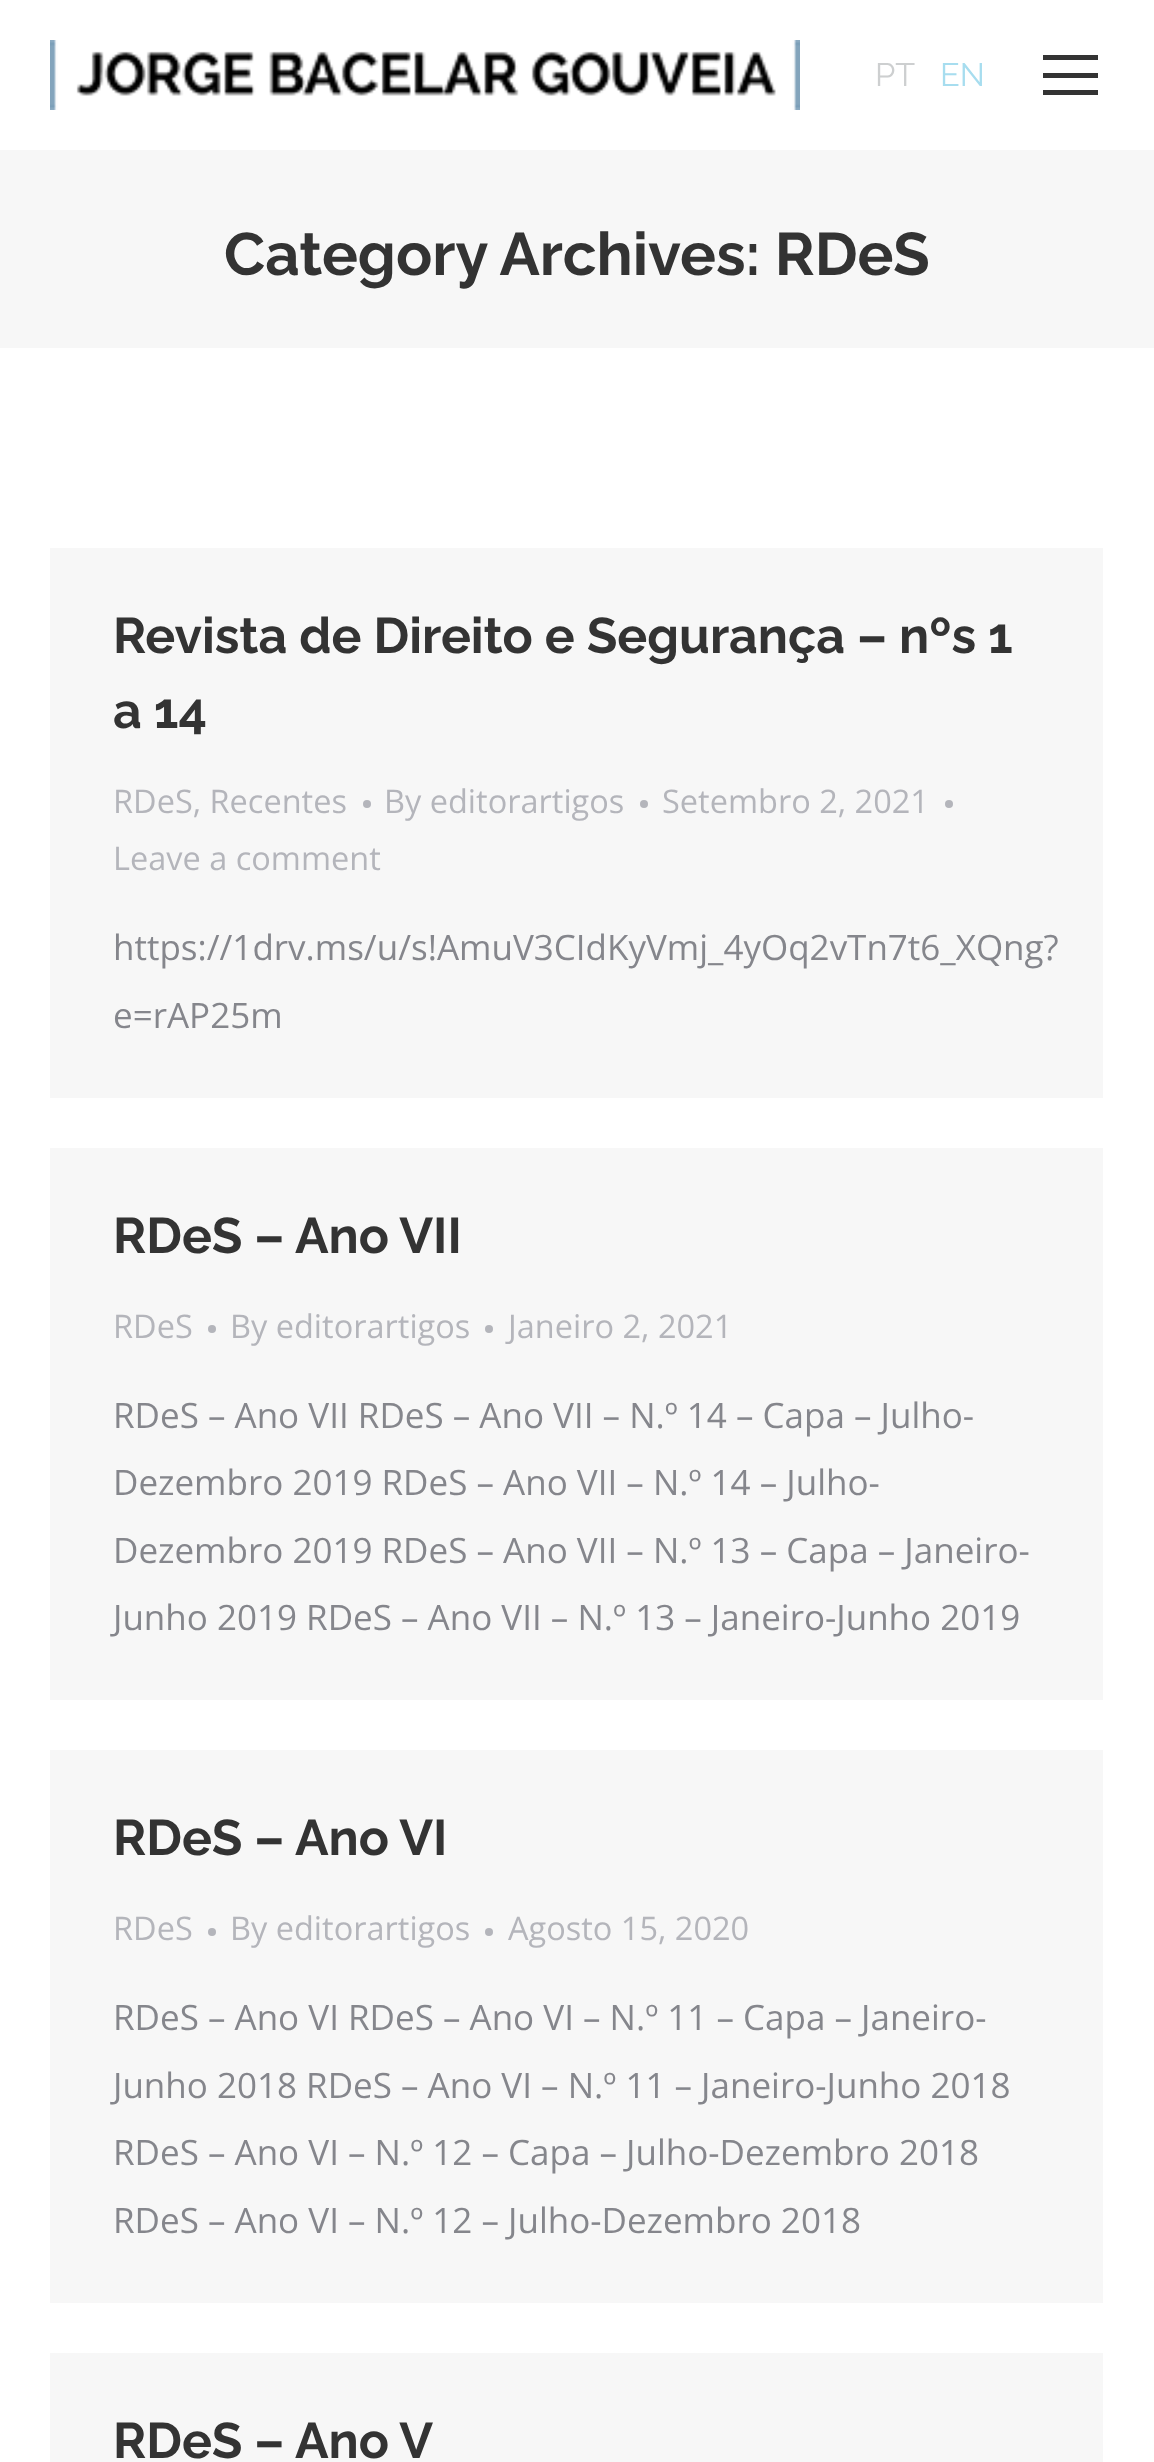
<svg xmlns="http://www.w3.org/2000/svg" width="1154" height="2462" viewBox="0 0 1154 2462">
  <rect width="100%" height="100%" fill="#ffffff"/>
  <image x="50" y="40" width="750" height="70" href="img1.png"/>
  <text x="875" y="86" font-family="Raleway" font-size="32.5" fill="#cdcfd0">PT</text>
  <text x="940" y="86" font-family="Raleway" font-size="32.5" fill="#a7ddef">EN</text>
  <rect x="1043" y="55" width="55" height="5" fill="#333333"/>
  <rect x="1043" y="73" width="55" height="5" fill="#333333"/>
  <rect x="1043" y="90" width="55" height="5" fill="#333333"/>
  <rect x="0" y="150" width="1154" height="198" fill="#f7f7f7"/>
  <text x="224" y="275" font-family="Raleway" font-size="60" font-weight="bold" fill="#333333">Category Archives: RDeS</text>
  <rect x="50" y="548" width="1053" height="550" fill="#f7f7f7"/>
  <text x="113" y="653" font-family="Raleway" font-size="50" font-weight="bold" fill="#333333">Revista de Direito e Segurança – nºs 1</text>
  <text x="113" y="728" font-family="Raleway" font-size="50" font-weight="bold" fill="#333333">a 14</text>
  <text x="113" y="813" font-family="Open Sans" font-size="32.5" fill="#b4b5bb">RDeS, Recentes</text>
  <circle cx="367" cy="804" r="4" fill="#b4b5bb"/>
  <text x="384" y="813" font-family="Open Sans" font-size="32.5" fill="#b4b5bb">By editorartigos</text>
  <circle cx="644" cy="804" r="4" fill="#b4b5bb"/>
  <text x="662" y="813" font-family="Open Sans" font-size="32.5" fill="#b4b5bb">Setembro 2, 2021</text>
  <circle cx="949" cy="804" r="4" fill="#b4b5bb"/>
  <text x="113" y="870" font-family="Open Sans" font-size="32.5" fill="#b4b5bb">Leave a comment</text>
  <text x="113" y="960" font-family="Open Sans" font-size="35" fill="#85868c">https://1drv.ms/u/s!AmuV3CIdKyVmj_4yOq2vTn7t6_XQng?</text>
  <text x="113" y="1028" font-family="Open Sans" font-size="35" fill="#85868c">e=rAP25m</text>
  <rect x="50" y="1148" width="1053" height="552" fill="#f7f7f7"/>
  <text x="113" y="1253" font-family="Raleway" font-size="50" font-weight="bold" fill="#333333">RDeS – Ano VII</text>
  <text x="113" y="1338" font-family="Open Sans" font-size="32.5" fill="#b4b5bb">RDeS</text>
  <circle cx="212" cy="1329" r="4" fill="#b4b5bb"/>
  <text x="230" y="1338" font-family="Open Sans" font-size="32.5" fill="#b4b5bb">By editorartigos</text>
  <circle cx="489" cy="1329" r="4" fill="#b4b5bb"/>
  <text x="508" y="1338" font-family="Open Sans" font-size="32.5" fill="#b4b5bb">Janeiro 2, 2021</text>
  <text x="113" y="1428" font-family="Open Sans" font-size="35" fill="#85868c">RDeS – Ano VII RDeS – Ano VII – N.º 14 – Capa – Julho-</text>
  <text x="113" y="1495" font-family="Open Sans" font-size="35" fill="#85868c">Dezembro 2019 RDeS – Ano VII – N.º 14 – Julho-</text>
  <text x="113" y="1563" font-family="Open Sans" font-size="35" fill="#85868c">Dezembro 2019 RDeS – Ano VII – N.º 13 – Capa – Janeiro-</text>
  <text x="113" y="1630" font-family="Open Sans" font-size="35" fill="#85868c">Junho 2019 RDeS – Ano VII – N.º 13 – Janeiro-Junho 2019</text>
  <rect x="50" y="1750" width="1053" height="553" fill="#f7f7f7"/>
  <text x="113" y="1855" font-family="Raleway" font-size="50" font-weight="bold" fill="#333333">RDeS – Ano VI</text>
  <text x="113" y="1940" font-family="Open Sans" font-size="32.5" fill="#b4b5bb">RDeS</text>
  <circle cx="212" cy="1932" r="4" fill="#b4b5bb"/>
  <text x="230" y="1940" font-family="Open Sans" font-size="32.5" fill="#b4b5bb">By editorartigos</text>
  <circle cx="489" cy="1932" r="4" fill="#b4b5bb"/>
  <text x="508" y="1940" font-family="Open Sans" font-size="32.5" fill="#b4b5bb">Agosto 15, 2020</text>
  <text x="113" y="2030" font-family="Open Sans" font-size="35" fill="#85868c">RDeS – Ano VI RDeS – Ano VI – N.º 11 – Capa – Janeiro-</text>
  <text x="113" y="2098" font-family="Open Sans" font-size="35" fill="#85868c">Junho 2018 RDeS – Ano VI – N.º 11 – Janeiro-Junho 2018</text>
  <text x="113" y="2165" font-family="Open Sans" font-size="35" fill="#85868c">RDeS – Ano VI – N.º 12 – Capa – Julho-Dezembro 2018</text>
  <text x="113" y="2233" font-family="Open Sans" font-size="35" fill="#85868c">RDeS – Ano VI – N.º 12 – Julho-Dezembro 2018</text>
  <rect x="50" y="2353" width="1053" height="109" fill="#f7f7f7"/>
  <text x="113" y="2458" font-family="Raleway" font-size="50" font-weight="bold" fill="#333333">RDeS – Ano V</text>
</svg>
